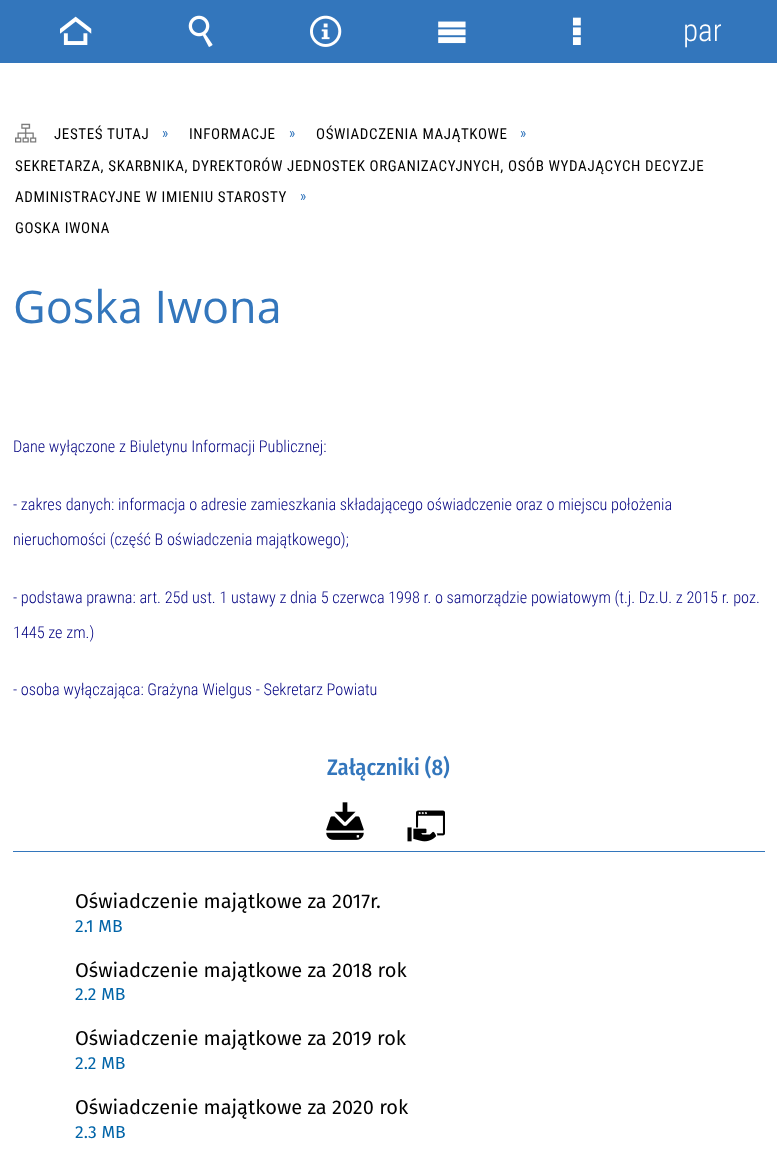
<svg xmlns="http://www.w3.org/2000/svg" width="777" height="1173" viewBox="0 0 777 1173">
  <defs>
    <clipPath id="clip1"><rect x="684" y="13" width="37" height="37"/></clipPath>
  </defs>
  <rect width="100%" height="100%" fill="#ffffff"/>
  <rect x="0" y="0" width="777" height="63" fill="#3376bc"/>
  <image x="60" y="16" width="32" height="29" href="img1.png"/>
  <image x="188" y="15" width="25" height="32" href="img2.png"/>
  <image x="310" y="15" width="32" height="32" href="img3.png"/>
  <image x="438" y="21" width="28" height="23" href="img4.png"/>
  <image x="572" y="17" width="9" height="28" href="img5.png"/>
  <g clip-path="url(#clip1)">
    <text x="683" y="41" font-family="Roboto Condensed" font-size="31" font-weight="300" fill="#ffffff">pan</text>
  </g>
  <image x="15" y="123" width="22" height="20" href="img6.png"/>
  <text x="54" y="139" font-family="Roboto Condensed" font-size="15" letter-spacing="0.62" fill="#000000">JESTEŚ TUTAJ</text>
  <text x="162" y="138" font-family="Roboto Condensed" font-size="15" letter-spacing="0.62" fill="#3376bc">»</text>
  <text x="189" y="139" font-family="Roboto Condensed" font-size="15" letter-spacing="0.62" fill="#000000">INFORMACJE</text>
  <text x="289" y="138" font-family="Roboto Condensed" font-size="15" letter-spacing="0.62" fill="#3376bc">»</text>
  <text x="316" y="139" font-family="Roboto Condensed" font-size="15" letter-spacing="0.62" fill="#000000">OŚWIADCZENIA MAJĄTKOWE</text>
  <text x="520" y="138" font-family="Roboto Condensed" font-size="15" letter-spacing="0.62" fill="#3376bc">»</text>
  <text x="15" y="171" font-family="Roboto Condensed" font-size="15" letter-spacing="0.62" fill="#000000">SEKRETARZA, SKARBNIKA, DYREKTORÓW JEDNOSTEK ORGANIZACYJNYCH, OSÓB WYDAJĄCYCH DECYZJE</text>
  <text x="15" y="202" font-family="Roboto Condensed" font-size="15" letter-spacing="0.62" fill="#000000">ADMINISTRACYJNE W IMIENIU STAROSTY</text>
  <text x="300" y="201" font-family="Roboto Condensed" font-size="15" letter-spacing="0.62" fill="#3376bc">»</text>
  <text x="15" y="233" font-family="Roboto Condensed" font-size="15" letter-spacing="0.62" fill="#000000">GOSKA IWONA</text>
  <text x="13" y="323" font-family="Open Sans" font-size="45" fill="#3376bc">Goska Iwona</text>
  <text x="13" y="452" font-family="Roboto Condensed" font-size="16.25" font-weight="300" fill="#000080">Dane wyłączone z Biuletynu Informacji Publicznej:</text>
  <text x="13" y="510" font-family="Roboto Condensed" font-size="16.25" font-weight="300" fill="#000080">- zakres danych: informacja o adresie zamieszkania składającego oświadczenie oraz o miejscu położenia</text>
  <text x="13" y="545" font-family="Roboto Condensed" font-size="16.25" font-weight="300" fill="#000080">nieruchomości (część B oświadczenia majątkowego);</text>
  <text x="13" y="603" font-family="Roboto Condensed" font-size="16.25" font-weight="300" fill="#000080">- podstawa prawna: art. 25d ust. 1 ustawy z dnia 5 czerwca 1998 r. o samorządzie powiatowym (t.j. Dz.U. z 2015 r. poz.</text>
  <text x="13" y="638" font-family="Roboto Condensed" font-size="16.25" font-weight="300" fill="#000080">1445 ze zm.)</text>
  <text x="13" y="695" font-family="Roboto Condensed" font-size="16.25" font-weight="300" fill="#000080">- osoba wyłączająca: Grażyna Wielgus - Sekretarz Powiatu</text>
  <rect x="13" y="851" width="752" height="1" fill="#3376bc"/>
  <text x="327" y="775" font-family="Fira Sans Condensed" font-size="22.5" font-weight="500" fill="#3376bc">Załączniki (8)</text>
  <image x="326" y="802" width="38" height="38" href="img7.png"/>
  <image x="407" y="810" width="38" height="32" href="img8.png"/>
  <text x="75" y="908" font-family="Fira Sans" font-size="20" fill="#000000">Oświadczenie majątkowe za 2017r.</text>
  <text x="75" y="932" font-family="Fira Sans" font-size="17.5" fill="#0164a8">2.1 MB</text>
  <text x="75" y="977" font-family="Fira Sans" font-size="20" fill="#000000">Oświadczenie majątkowe za 2018 rok</text>
  <text x="75" y="1000" font-family="Fira Sans" font-size="17.5" fill="#0164a8">2.2 MB</text>
  <text x="75" y="1045" font-family="Fira Sans" font-size="20" fill="#000000">Oświadczenie majątkowe za 2019 rok</text>
  <text x="75" y="1069" font-family="Fira Sans" font-size="17.5" fill="#0164a8">2.2 MB</text>
  <text x="75" y="1114" font-family="Fira Sans" font-size="20" fill="#000000">Oświadczenie majątkowe za 2020 rok</text>
  <text x="75" y="1138" font-family="Fira Sans" font-size="17.5" fill="#0164a8">2.3 MB</text>
</svg>
